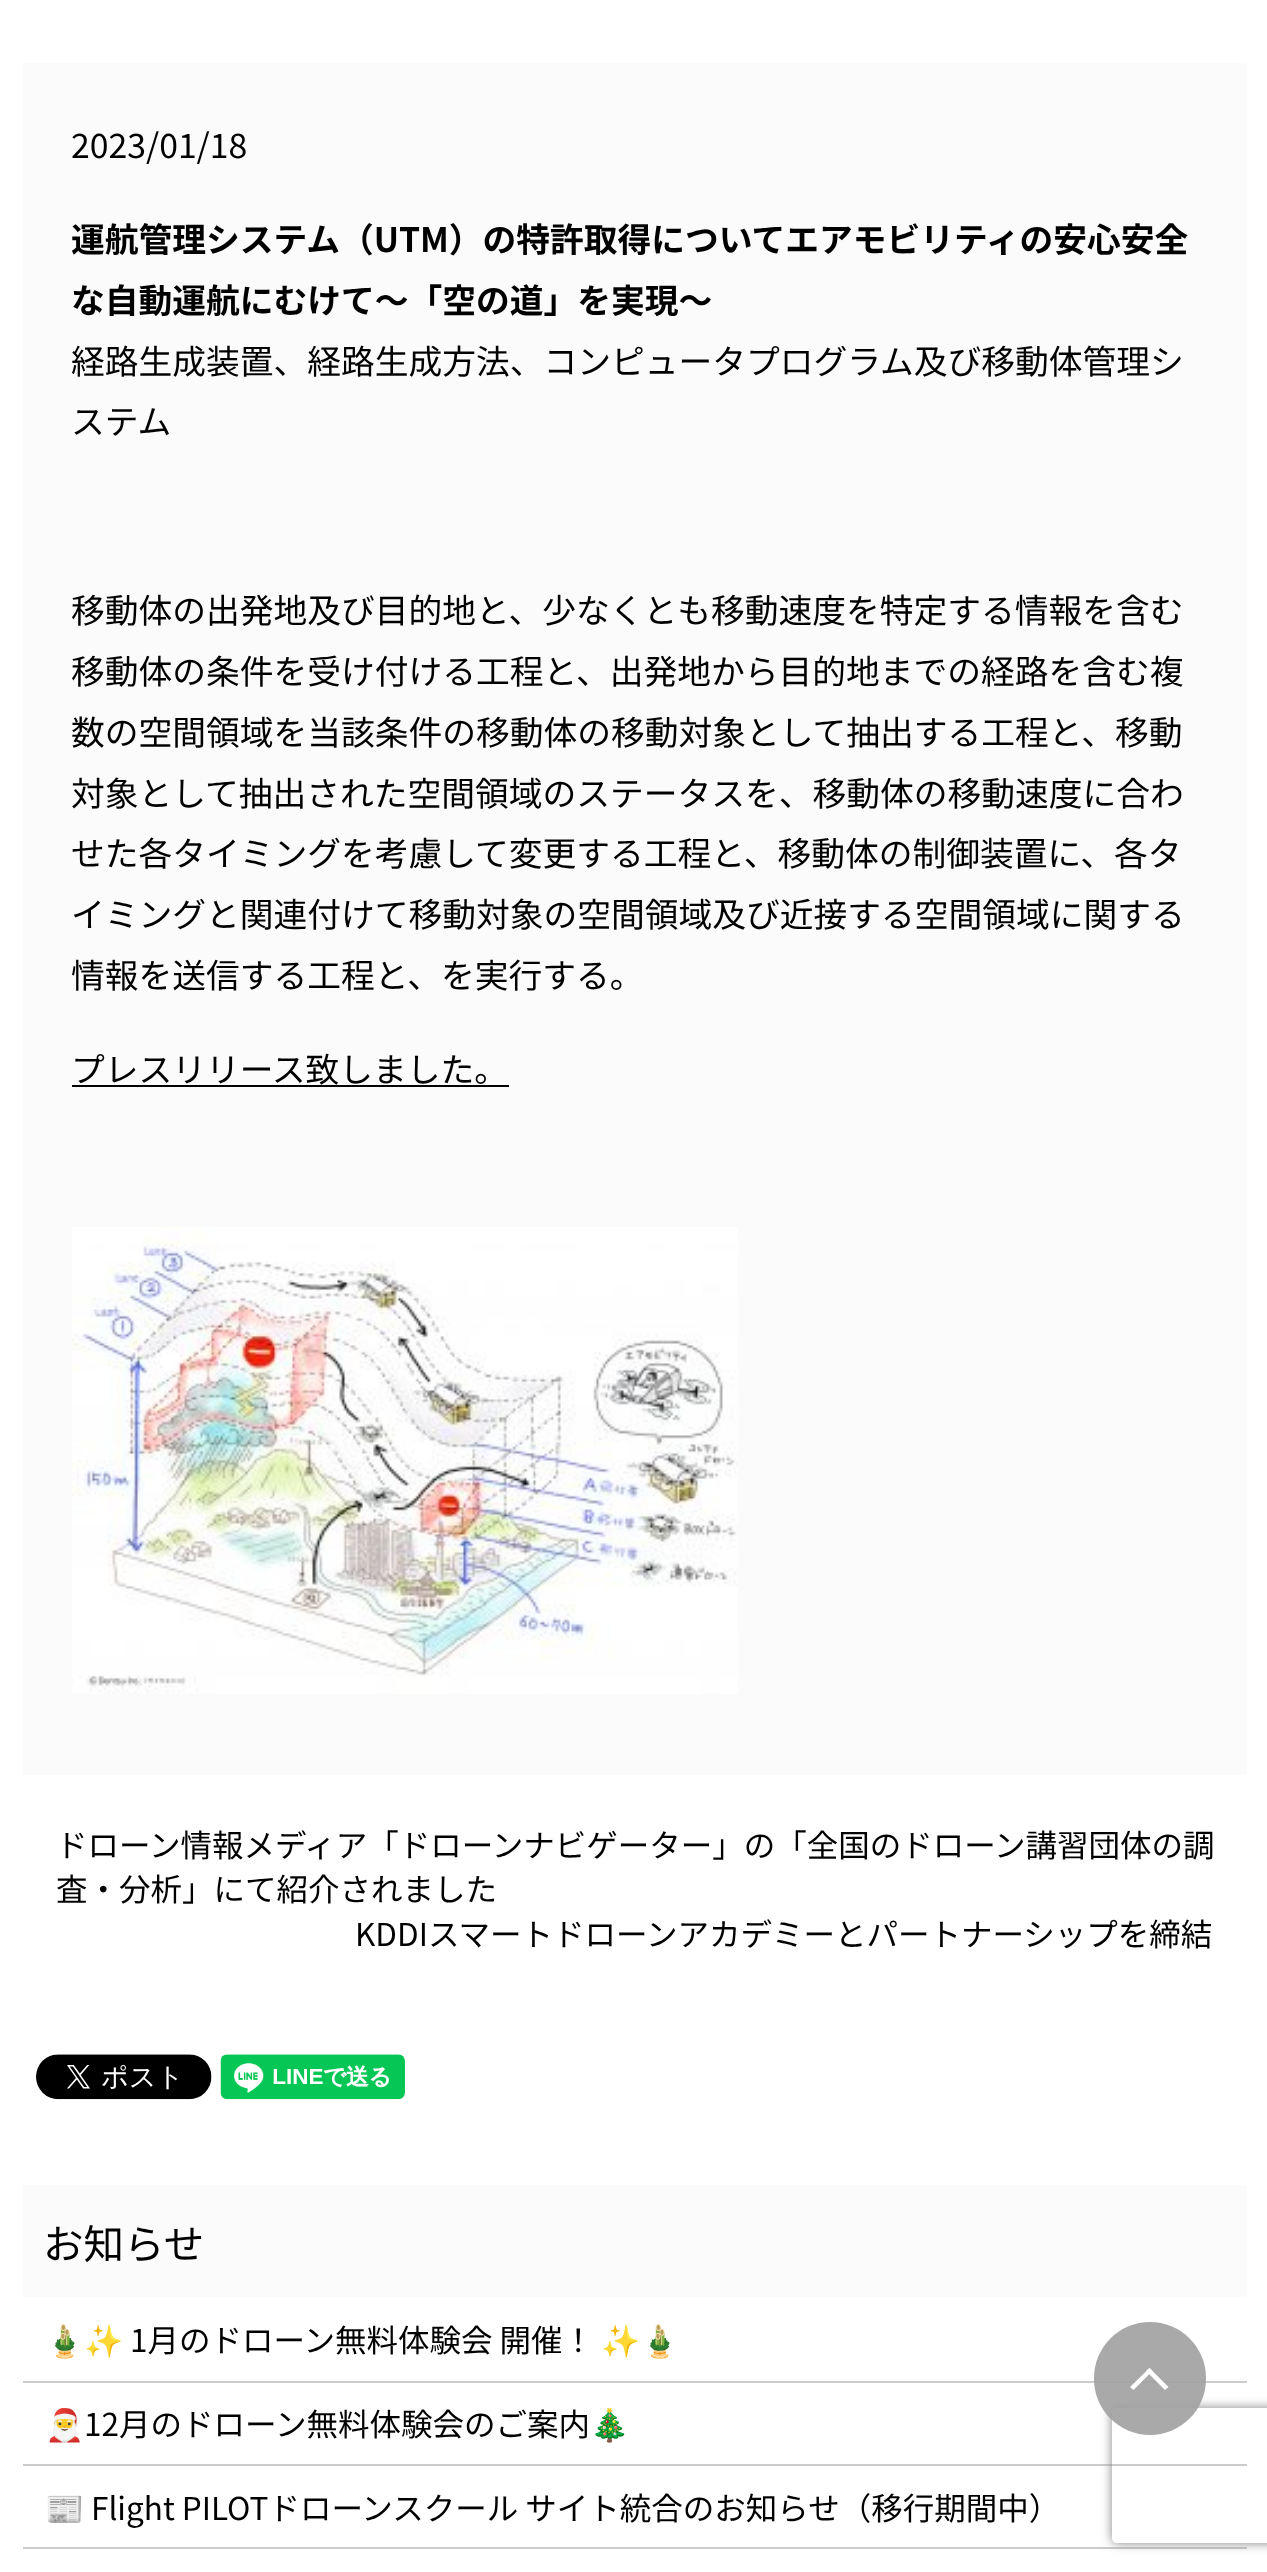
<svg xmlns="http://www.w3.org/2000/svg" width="1267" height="2572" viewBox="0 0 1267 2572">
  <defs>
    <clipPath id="clip1"><path d="M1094 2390H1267V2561H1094ZM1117 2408H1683C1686 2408 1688 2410 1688 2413V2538C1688 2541 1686 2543 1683 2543H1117C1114 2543 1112 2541 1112 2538V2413C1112 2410 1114 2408 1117 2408Z" clip-rule="evenodd"/></clipPath>
    <filter id="blur1" x="-50%" y="-200%" width="200%" height="500%"><feGaussianBlur stdDeviation="5.5"/></filter>
  </defs>
  <rect width="100%" height="100%" fill="#ffffff"/>
  <rect x="23" y="63" width="1224" height="1712" fill="#fbfbfb"/>
  <text x="71" y="158" font-family="Noto Sans JP" font-size="33.75" fill="#000000">2023/01/18</text>
  <text x="71" y="252" font-family="Noto Sans JP" font-size="33.75" font-weight="bold" fill="#000000">運航管理システム（UTM）の特許取得についてエアモビリティの安心安全</text>
  <text x="71" y="313" font-family="Noto Sans JP" font-size="33.75" font-weight="bold" fill="#000000">な自動運航にむけて～「空の道」を実現～</text>
  <text x="71" y="374" font-family="Noto Sans JP" font-size="33.75" fill="#000000">経路生成装置、経路生成方法、コンピュータプログラム及び移動体管理シ</text>
  <text x="71" y="434" font-family="Noto Sans JP" font-size="33.75" fill="#000000">ステム</text>
  <text x="71" y="623" font-family="Noto Sans JP" font-size="33.75" fill="#000000">移動体の出発地及び目的地と、少なくとも移動速度を特定する情報を含む</text>
  <text x="71" y="684" font-family="Noto Sans JP" font-size="33.75" fill="#000000">移動体の条件を受け付ける工程と、出発地から目的地までの経路を含む複</text>
  <text x="71" y="745" font-family="Noto Sans JP" font-size="33.75" fill="#000000">数の空間領域を当該条件の移動体の移動対象として抽出する工程と、移動</text>
  <text x="71" y="806" font-family="Noto Sans JP" font-size="33.75" fill="#000000">対象として抽出された空間領域のステータスを、移動体の移動速度に合わ</text>
  <text x="71" y="866" font-family="Noto Sans JP" font-size="33.75" fill="#000000">せた各タイミングを考慮して変更する工程と、移動体の制御装置に、各タ</text>
  <text x="71" y="927" font-family="Noto Sans JP" font-size="33.75" fill="#000000">イミングと関連付けて移動対象の空間領域及び近接する空間領域に関する</text>
  <text x="71" y="988" font-family="Noto Sans JP" font-size="33.75" fill="#000000">情報を送信する工程と、を実行する。</text>
  <text x="71" y="1082" font-family="Noto Sans JP" font-size="33.75" fill="#000000">プレスリリース致しました。</text>
  <rect x="72" y="1085" width="437" height="2" fill="#000000"/>
  <image x="72" y="1227" width="666" height="467" href="img1.png"/>
  <text x="56" y="1857" font-family="Noto Sans JP" font-size="31.5" fill="#000000">ドローン情報メディア「ドローンナビゲーター」の「全国のドローン講習団体の調</text>
  <text x="56" y="1901" font-family="Noto Sans JP" font-size="31.5" fill="#000000">査・分析」にて紹介されました</text>
  <text x="355" y="1946" font-family="Noto Sans JP" font-size="31.5" fill="#000000">KDDIスマートドローンアカデミーとパートナーシップを締結</text>
  <image x="36" y="2054" width="176" height="46" href="img2.png"/>
  <image x="220" y="2054" width="185" height="46" href="img3.png"/>
  <rect x="23" y="2185" width="1224" height="112" fill="#fbfbfb"/>
  <text x="43" y="2259" font-family="Noto Sans JP" font-size="40.5" fill="#000000">お知らせ</text>
  <rect x="23" y="2381" width="1224" height="2" fill="#cccccc"/>
  <text x="45" y="2352" font-family="Noto Color Emoji" font-size="31.5" fill="#000000">🎍✨</text>
  <text x="130" y="2352" font-family="Noto Sans JP" font-size="31.5" fill="#000000">1月のドローン無料体験会 開催！</text>
  <text x="601" y="2352" font-family="Noto Color Emoji" font-size="31.5" fill="#000000">✨🎍</text>
  <rect x="23" y="2464" width="1224" height="2" fill="#cccccc"/>
  <text x="45" y="2436" font-family="Noto Color Emoji" font-size="31.5" fill="#000000">🎅</text>
  <text x="84" y="2436" font-family="Noto Sans JP" font-size="31.5" fill="#000000">12月のドローン無料体験会のご案内</text>
  <text x="590" y="2436" font-family="Noto Color Emoji" font-size="31.5" fill="#000000">🎄</text>
  <rect x="23" y="2547" width="1224" height="2" fill="#cccccc"/>
  <text x="45" y="2520" font-family="Noto Color Emoji" font-size="31.5" fill="#000000">📰</text>
  <text x="91" y="2520" font-family="Noto Sans JP" font-size="31.5" fill="#000000">Flight PILOTドローンスクール サイト統合のお知らせ（移行期間中）</text>
  <g clip-path="url(#clip1)">
    <rect x="1112" y="2408" width="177" height="135" rx="5" fill="#808080" filter="url(#blur1)"/>
  </g>
  <rect x="1094" y="2322" width="112" height="113" rx="56" fill="#a0a0a0" fill-opacity="0.9"/>
  <path d="M1149.5 2368L1168.5 2387L1165 2390L1146 2371Z" fill="#ffffff"/>
  <path d="M1149.5 2368L1152.5 2371L1133.5 2390L1130 2387Z" fill="#ffffff"/>
</svg>
